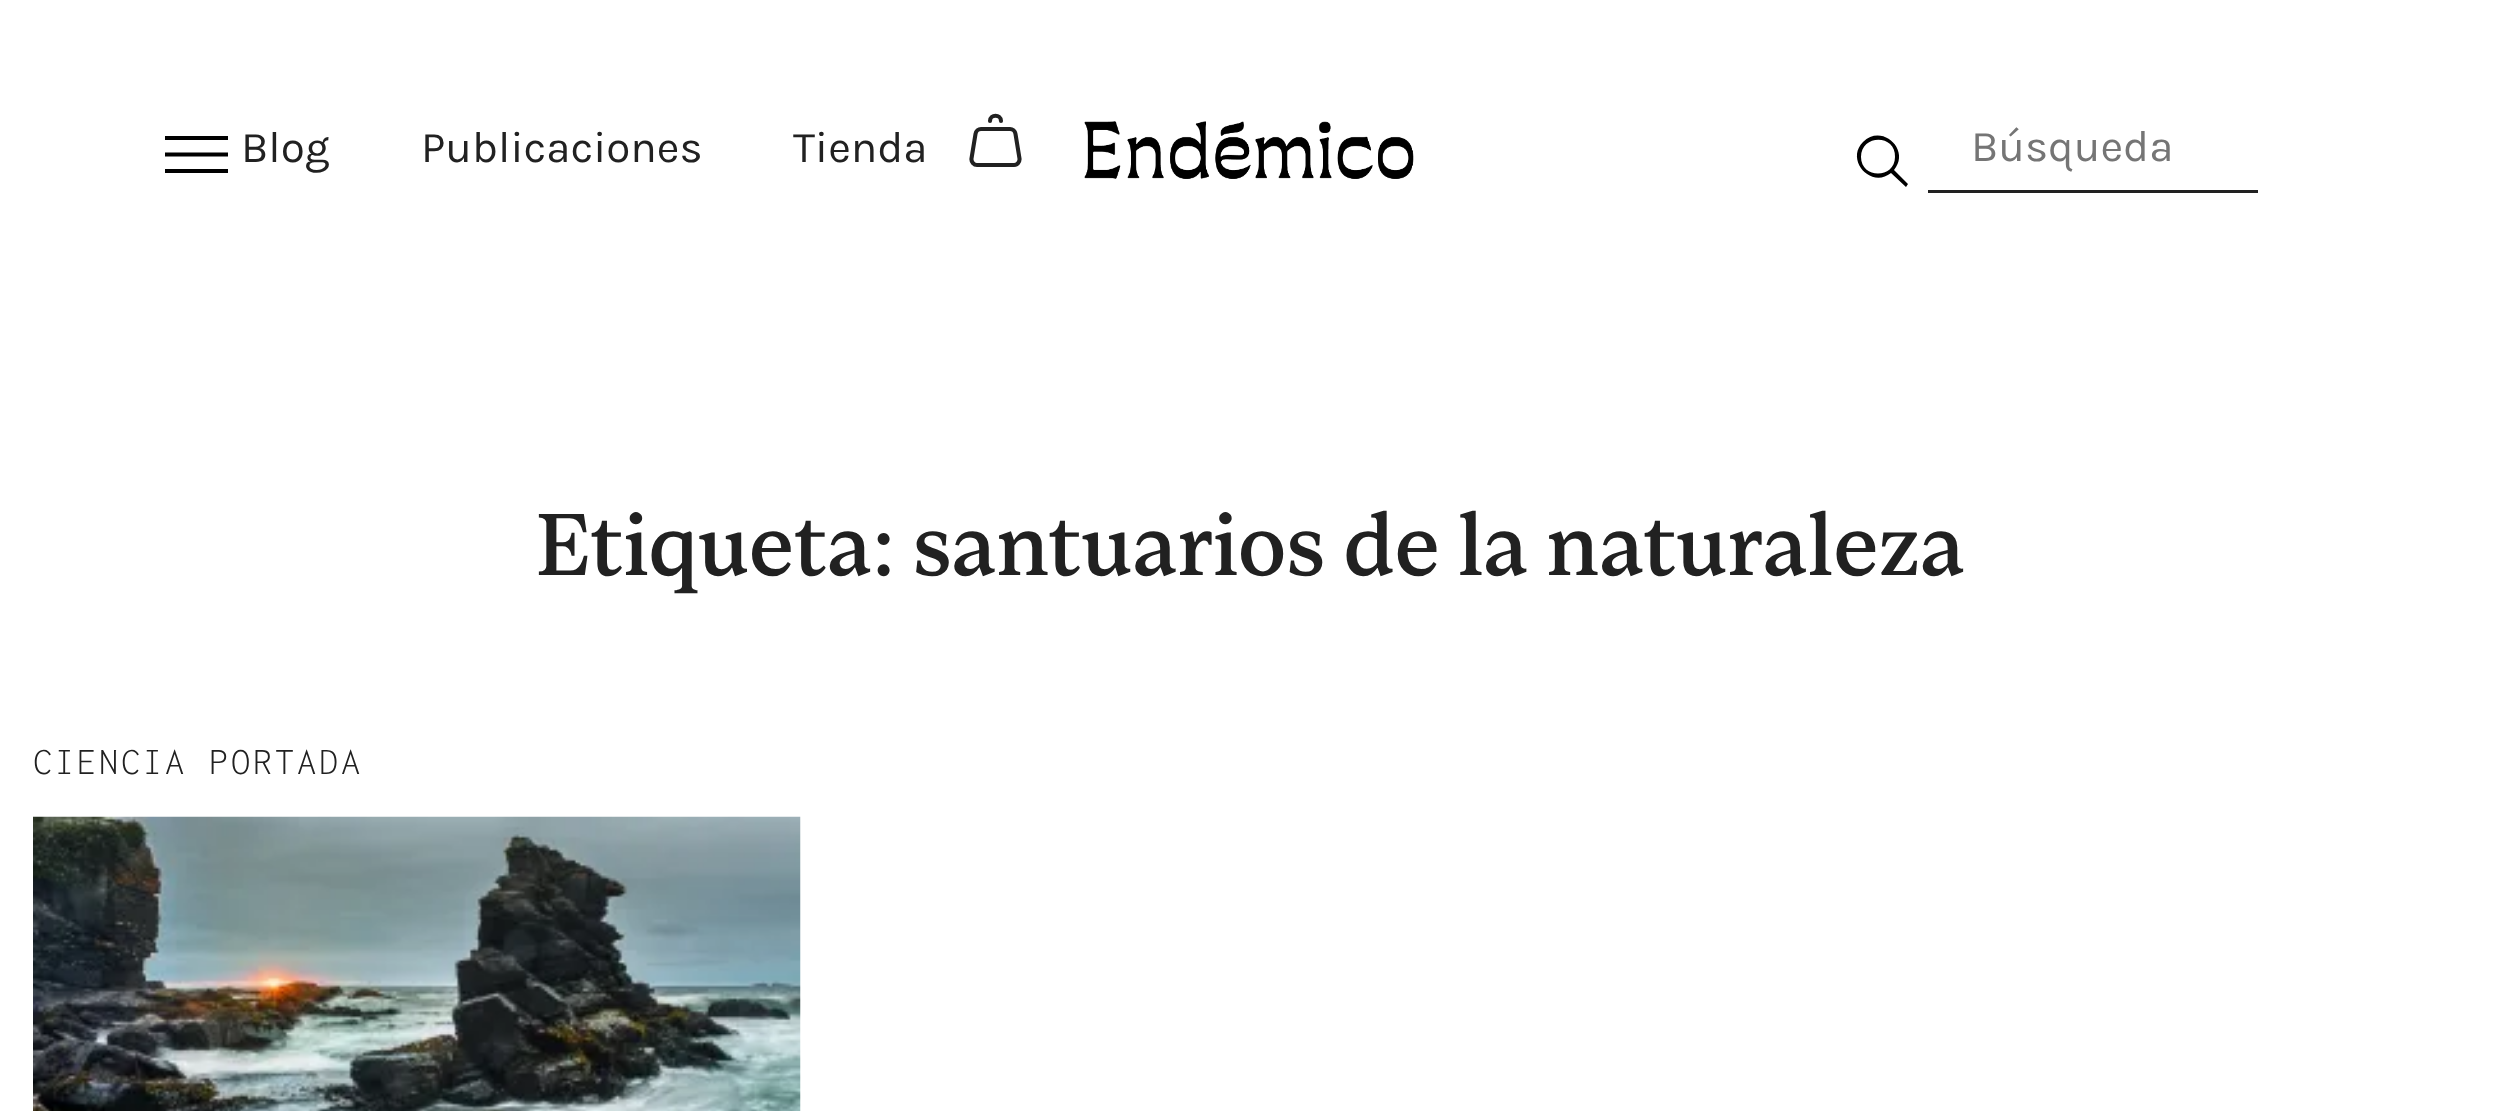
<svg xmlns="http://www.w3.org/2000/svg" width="2498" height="1111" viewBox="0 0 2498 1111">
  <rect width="100%" height="100%" fill="#ffffff"/>
  <text x="241" y="162" font-family="Karla" font-size="44" fill="#212121">Blog</text>
  <text x="421" y="162" font-family="Karla" font-size="44" fill="#212121">Publicaciones</text>
  <text x="793" y="162" font-family="Karla" font-size="44" fill="#212121">Tienda</text>
  <path d="M1015.5 134L1019.5 158.5C1020 162 1017 165 1014 165H977C974 165 971 162 971.5 158.5L975.5 134C976 131 978.5 129 981 129H1010C1012.5 129 1015 131 1015.5 134ZM1001 121C1001 114 990 114 990 121" fill="none" stroke="#212121" stroke-width="4.1" stroke-linecap="round" stroke-linejoin="round"/>
  <image x="1084" y="121" width="330" height="58" href="img1.png"/>
  <path d="M1908 184L1894 170C1911 150 1882 123 1863 142C1845 160 1871 189 1891 173L1906 187ZM1861 157C1861 134 1896 134 1895 157C1895 179 1861 179 1861 157Z" fill="#000000"/>
  <rect x="1928" y="190" width="330" height="3" fill="#212121"/>
  <text x="1971" y="161" font-family="Karla" font-size="44" fill="#757575">Búsqueda</text>
  <text x="535" y="575" font-family="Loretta" font-size="88" font-weight="500" fill="#212121">Etiqueta: santuarios de la naturaleza</text>
  <text x="33" y="774" font-family="Inconsolata" font-size="38.5" font-weight="300" letter-spacing="2.75" fill="#212121">CIENCIA PORTADA</text>
  <image x="33" y="816" width="768" height="295" href="img2.png"/>
  <rect x="165" y="136" width="63" height="4" fill="#000000"/>
  <path d="M165 154.5H228" fill="none" stroke="#000000" stroke-width="4.1"/>
  <rect x="165" y="169" width="63" height="4" fill="#000000"/>
</svg>
